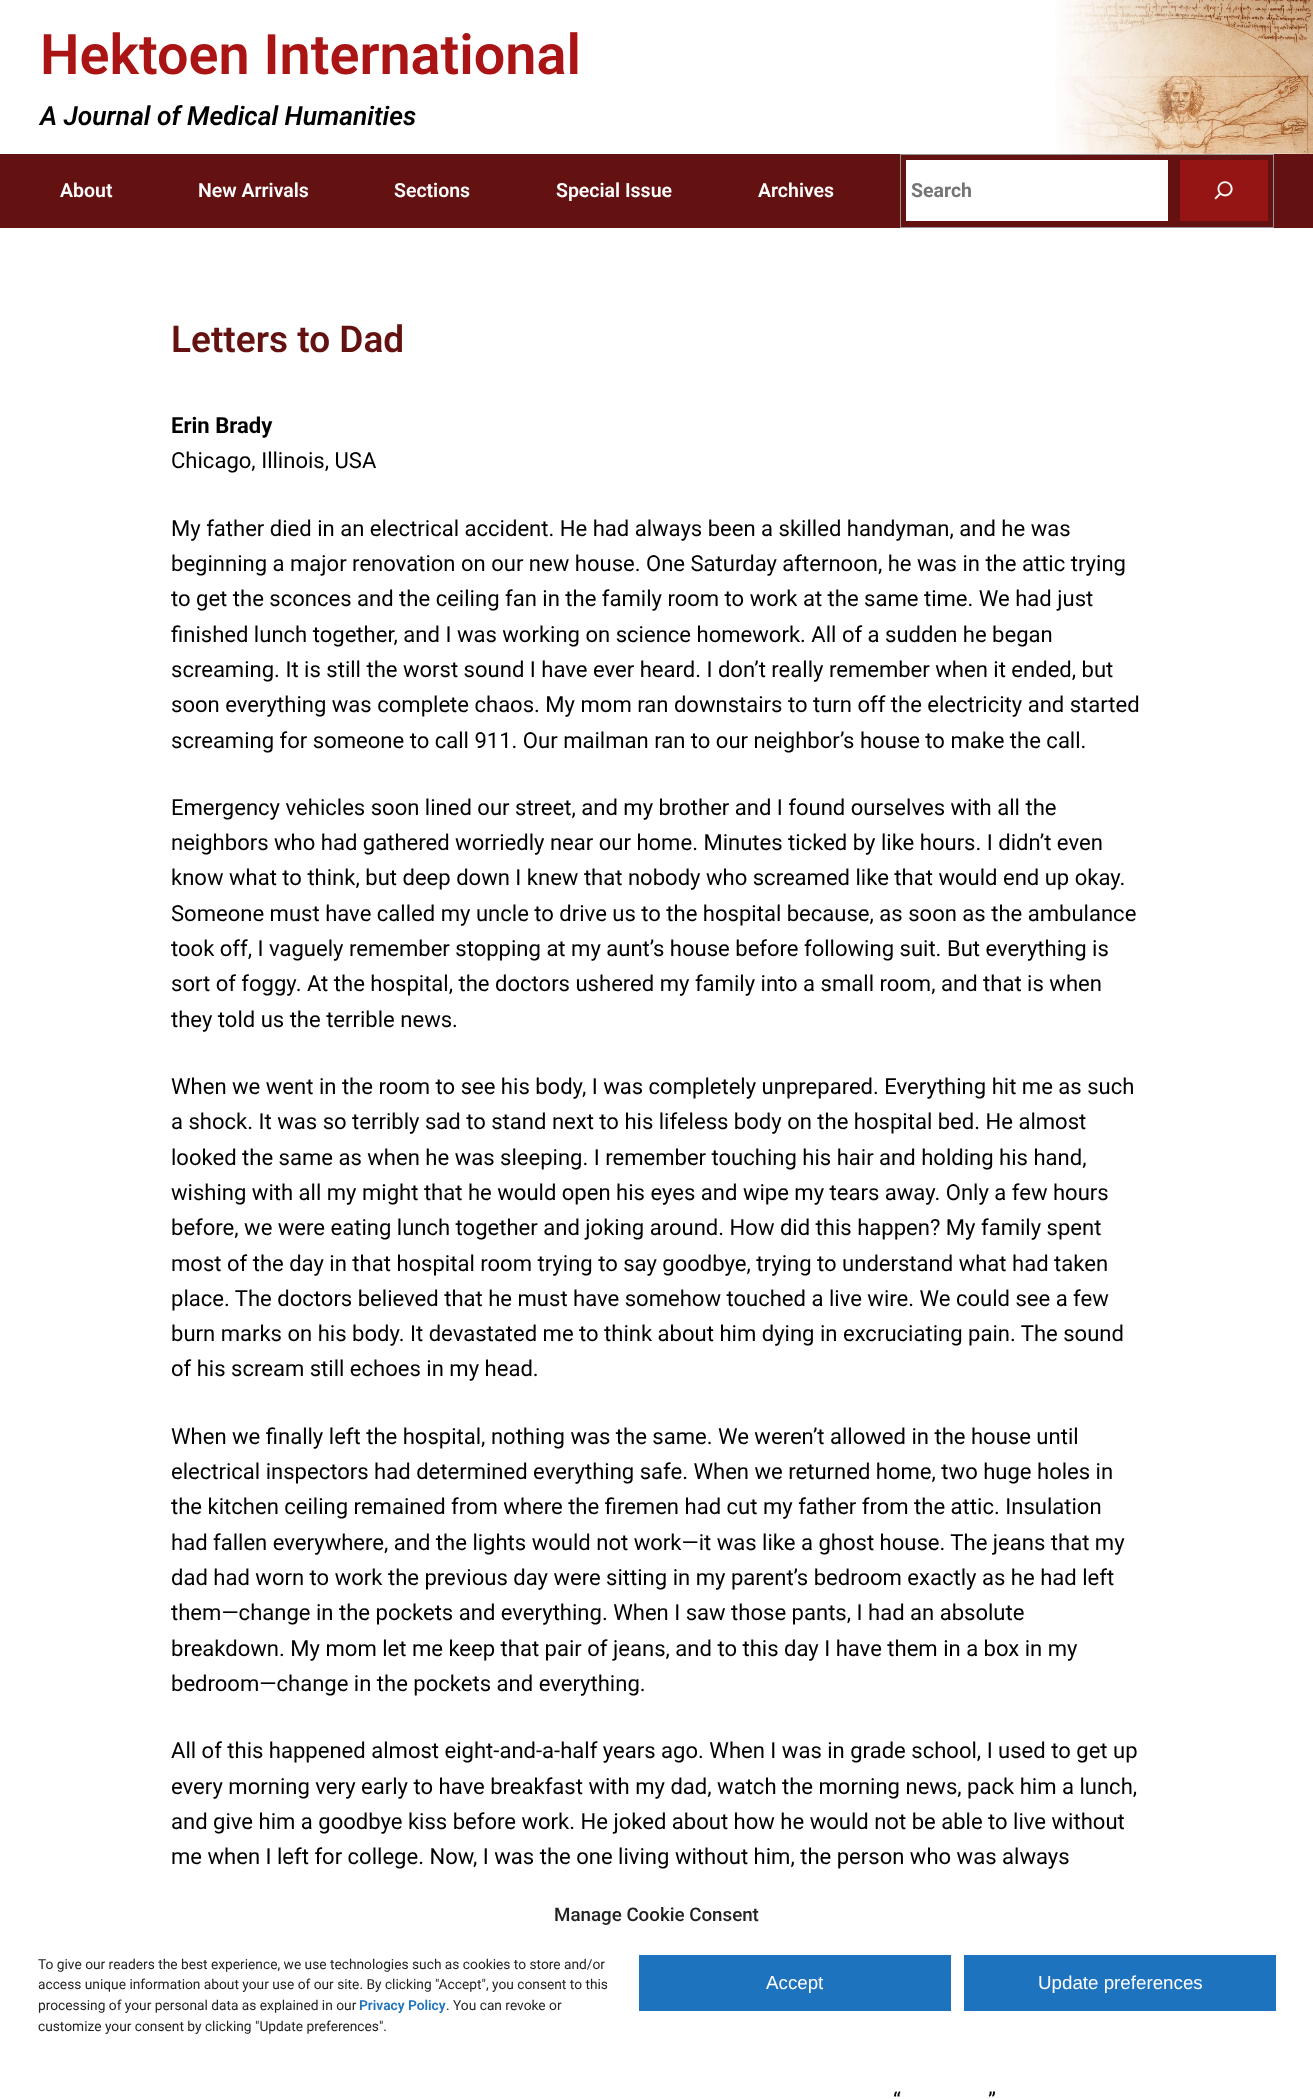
<svg xmlns="http://www.w3.org/2000/svg" width="1313" height="2099" viewBox="0 0 1313 2099">
  <rect width="100%" height="100%" fill="#ffffff"/>
  <text x="40" y="74" font-family="Roboto" font-size="55.75" font-weight="600" fill="#aa1414">Hektoen International</text>
  <text x="40" y="125" font-family="Roboto" font-size="26.4" font-weight="600" font-style="italic" fill="#000000">A Journal of Medical Humanities</text>
  <image x="1055" y="0" width="258" height="154" href="img1.png"/>
  <rect x="0" y="154" width="1313" height="74" fill="#641111"/>
  <text x="60" y="197" font-family="Roboto" font-size="19.5" font-weight="600" fill="#ffffff">About</text>
  <text x="198" y="197" font-family="Roboto" font-size="19.5" font-weight="600" fill="#ffffff">New Arrivals</text>
  <text x="394" y="197" font-family="Roboto" font-size="19.5" font-weight="600" fill="#ffffff">Sections</text>
  <text x="556" y="197" font-family="Roboto" font-size="19.5" font-weight="600" fill="#ffffff">Special Issue</text>
  <text x="758" y="197" font-family="Roboto" font-size="19.5" font-weight="600" fill="#ffffff">Archives</text>
  <rect x="900.5" y="154.5" width="373" height="73" fill="none" stroke="#949494"/>
  <rect x="906" y="160" width="262" height="61" fill="#ffffff"/>
  <text x="911" y="197" font-family="Roboto" font-size="19.5" font-weight="bold" fill="#757575">Search</text>
  <rect x="1180" y="160" width="88" height="61" fill="#951515"/>
  <image x="1214" y="181" width="19" height="19" href="img2.png"/>
  <text x="171" y="352" font-family="Roboto" font-size="37" font-weight="600" fill="#641111">Letters to Dad</text>
  <text x="171" y="433" font-family="Roboto" font-size="22.05" font-weight="bold" fill="#000000">Erin Brady</text>
  <text x="171" y="468" font-family="Roboto" font-size="22.05" fill="#000000">Chicago, Illinois, USA</text>
  <text x="171" y="536" font-family="Roboto" font-size="22.05" fill="#000000">My father died in an electrical accident. He had always been a skilled handyman, and he was</text>
  <text x="171" y="571" font-family="Roboto" font-size="22.05" fill="#000000">beginning a major renovation on our new house. One Saturday afternoon, he was in the attic trying</text>
  <text x="171" y="606" font-family="Roboto" font-size="22.05" fill="#000000">to get the sconces and the ceiling fan in the family room to work at the same time. We had just</text>
  <text x="171" y="642" font-family="Roboto" font-size="22.05" fill="#000000">finished lunch together, and I was working on science homework. All of a sudden he began</text>
  <text x="171" y="677" font-family="Roboto" font-size="22.05" fill="#000000">screaming. It is still the worst sound I have ever heard. I don’t really remember when it ended, but</text>
  <text x="171" y="712" font-family="Roboto" font-size="22.05" fill="#000000">soon everything was complete chaos. My mom ran downstairs to turn off the electricity and started</text>
  <text x="171" y="748" font-family="Roboto" font-size="22.05" fill="#000000">screaming for someone to call 911. Our mailman ran to our neighbor’s house to make the call.</text>
  <text x="171" y="815" font-family="Roboto" font-size="22.05" fill="#000000">Emergency vehicles soon lined our street, and my brother and I found ourselves with all the</text>
  <text x="171" y="850" font-family="Roboto" font-size="22.05" fill="#000000">neighbors who had gathered worriedly near our home. Minutes ticked by like hours. I didn’t even</text>
  <text x="171" y="885" font-family="Roboto" font-size="22.05" fill="#000000">know what to think, but deep down I knew that nobody who screamed like that would end up okay.</text>
  <text x="171" y="921" font-family="Roboto" font-size="22.05" fill="#000000">Someone must have called my uncle to drive us to the hospital because, as soon as the ambulance</text>
  <text x="171" y="956" font-family="Roboto" font-size="22.05" fill="#000000">took off, I vaguely remember stopping at my aunt’s house before following suit. But everything is</text>
  <text x="171" y="991" font-family="Roboto" font-size="22.05" fill="#000000">sort of foggy. At the hospital, the doctors ushered my family into a small room, and that is when</text>
  <text x="171" y="1027" font-family="Roboto" font-size="22.05" fill="#000000">they told us the terrible news.</text>
  <text x="171" y="1094" font-family="Roboto" font-size="22.05" fill="#000000">When we went in the room to see his body, I was completely unprepared. Everything hit me as such</text>
  <text x="171" y="1129" font-family="Roboto" font-size="22.05" fill="#000000">a shock. It was so terribly sad to stand next to his lifeless body on the hospital bed. He almost</text>
  <text x="171" y="1165" font-family="Roboto" font-size="22.05" fill="#000000">looked the same as when he was sleeping. I remember touching his hair and holding his hand,</text>
  <text x="171" y="1200" font-family="Roboto" font-size="22.05" fill="#000000">wishing with all my might that he would open his eyes and wipe my tears away. Only a few hours</text>
  <text x="171" y="1235" font-family="Roboto" font-size="22.05" fill="#000000">before, we were eating lunch together and joking around. How did this happen? My family spent</text>
  <text x="171" y="1271" font-family="Roboto" font-size="22.05" fill="#000000">most of the day in that hospital room trying to say goodbye, trying to understand what had taken</text>
  <text x="171" y="1306" font-family="Roboto" font-size="22.05" fill="#000000">place. The doctors believed that he must have somehow touched a live wire. We could see a few</text>
  <text x="171" y="1341" font-family="Roboto" font-size="22.05" fill="#000000">burn marks on his body. It devastated me to think about him dying in excruciating pain. The sound</text>
  <text x="171" y="1376" font-family="Roboto" font-size="22.05" fill="#000000">of his scream still echoes in my head.</text>
  <text x="171" y="1444" font-family="Roboto" font-size="22.05" fill="#000000">When we finally left the hospital, nothing was the same. We weren’t allowed in the house until</text>
  <text x="171" y="1479" font-family="Roboto" font-size="22.05" fill="#000000">electrical inspectors had determined everything safe. When we returned home, two huge holes in</text>
  <text x="171" y="1514" font-family="Roboto" font-size="22.05" fill="#000000">the kitchen ceiling remained from where the firemen had cut my father from the attic. Insulation</text>
  <text x="171" y="1550" font-family="Roboto" font-size="22.05" fill="#000000">had fallen everywhere, and the lights would not work—it was like a ghost house. The jeans that my</text>
  <text x="171" y="1585" font-family="Roboto" font-size="22.05" fill="#000000">dad had worn to work the previous day were sitting in my parent’s bedroom exactly as he had left</text>
  <text x="171" y="1620" font-family="Roboto" font-size="22.05" fill="#000000">them—change in the pockets and everything. When I saw those pants, I had an absolute</text>
  <text x="171" y="1656" font-family="Roboto" font-size="22.05" fill="#000000">breakdown. My mom let me keep that pair of jeans, and to this day I have them in a box in my</text>
  <text x="171" y="1691" font-family="Roboto" font-size="22.05" fill="#000000">bedroom—change in the pockets and everything.</text>
  <text x="171" y="1758" font-family="Roboto" font-size="22.05" fill="#000000">All of this happened almost eight-and-a-half years ago. When I was in grade school, I used to get up</text>
  <text x="171" y="1794" font-family="Roboto" font-size="22.05" fill="#000000">every morning very early to have breakfast with my dad, watch the morning news, pack him a lunch,</text>
  <text x="171" y="1829" font-family="Roboto" font-size="22.05" fill="#000000">and give him a goodbye kiss before work. He joked about how he would not be able to live without</text>
  <text x="171" y="1864" font-family="Roboto" font-size="22.05" fill="#000000">me when I left for college. Now, I was the one living without him, the person who was always</text>
  <text x="893" y="2108" font-family="Roboto" font-size="22.05" fill="#000000">“</text>
  <text x="988" y="2108" font-family="Roboto" font-size="22.05" fill="#000000">”</text>
  <text x="554" y="1921" font-family="Roboto" font-size="18.75" font-weight="500" fill="#222222">Manage Cookie Consent</text>
  <text x="38" y="1969" font-family="Roboto" font-size="13.75" fill="#222222">To give our readers the best experience, we use technologies such as cookies to store and/or</text>
  <text x="38" y="1989" font-family="Roboto" font-size="13.75" fill="#222222">access unique information about your use of our site. By clicking "Accept", you consent to this</text>
  <text x="38" y="2010" font-family="Roboto" font-size="13.75" fill="#222222">processing of your personal data as explained in our</text>
  <text x="359" y="2010" font-family="Roboto" font-size="13.75" font-weight="600" fill="#1e73be">Privacy Policy</text>
  <text x="446" y="2010" font-family="Roboto" font-size="13.75" fill="#222222">. You can revoke or</text>
  <text x="38" y="2031" font-family="Roboto" font-size="13.75" fill="#222222">customize your consent by clicking "Update preferences".</text>
  <rect x="639" y="1955" width="312" height="56" fill="#1e73be"/>
  <text x="766" y="1989" font-family="Liberation Sans" font-size="18.75" fill="#ffffff">Accept</text>
  <rect x="964" y="1955" width="312" height="56" fill="#1e73be"/>
  <text x="1038" y="1989" font-family="Liberation Sans" font-size="18.75" fill="#ffffff">Update preferences</text>
</svg>
